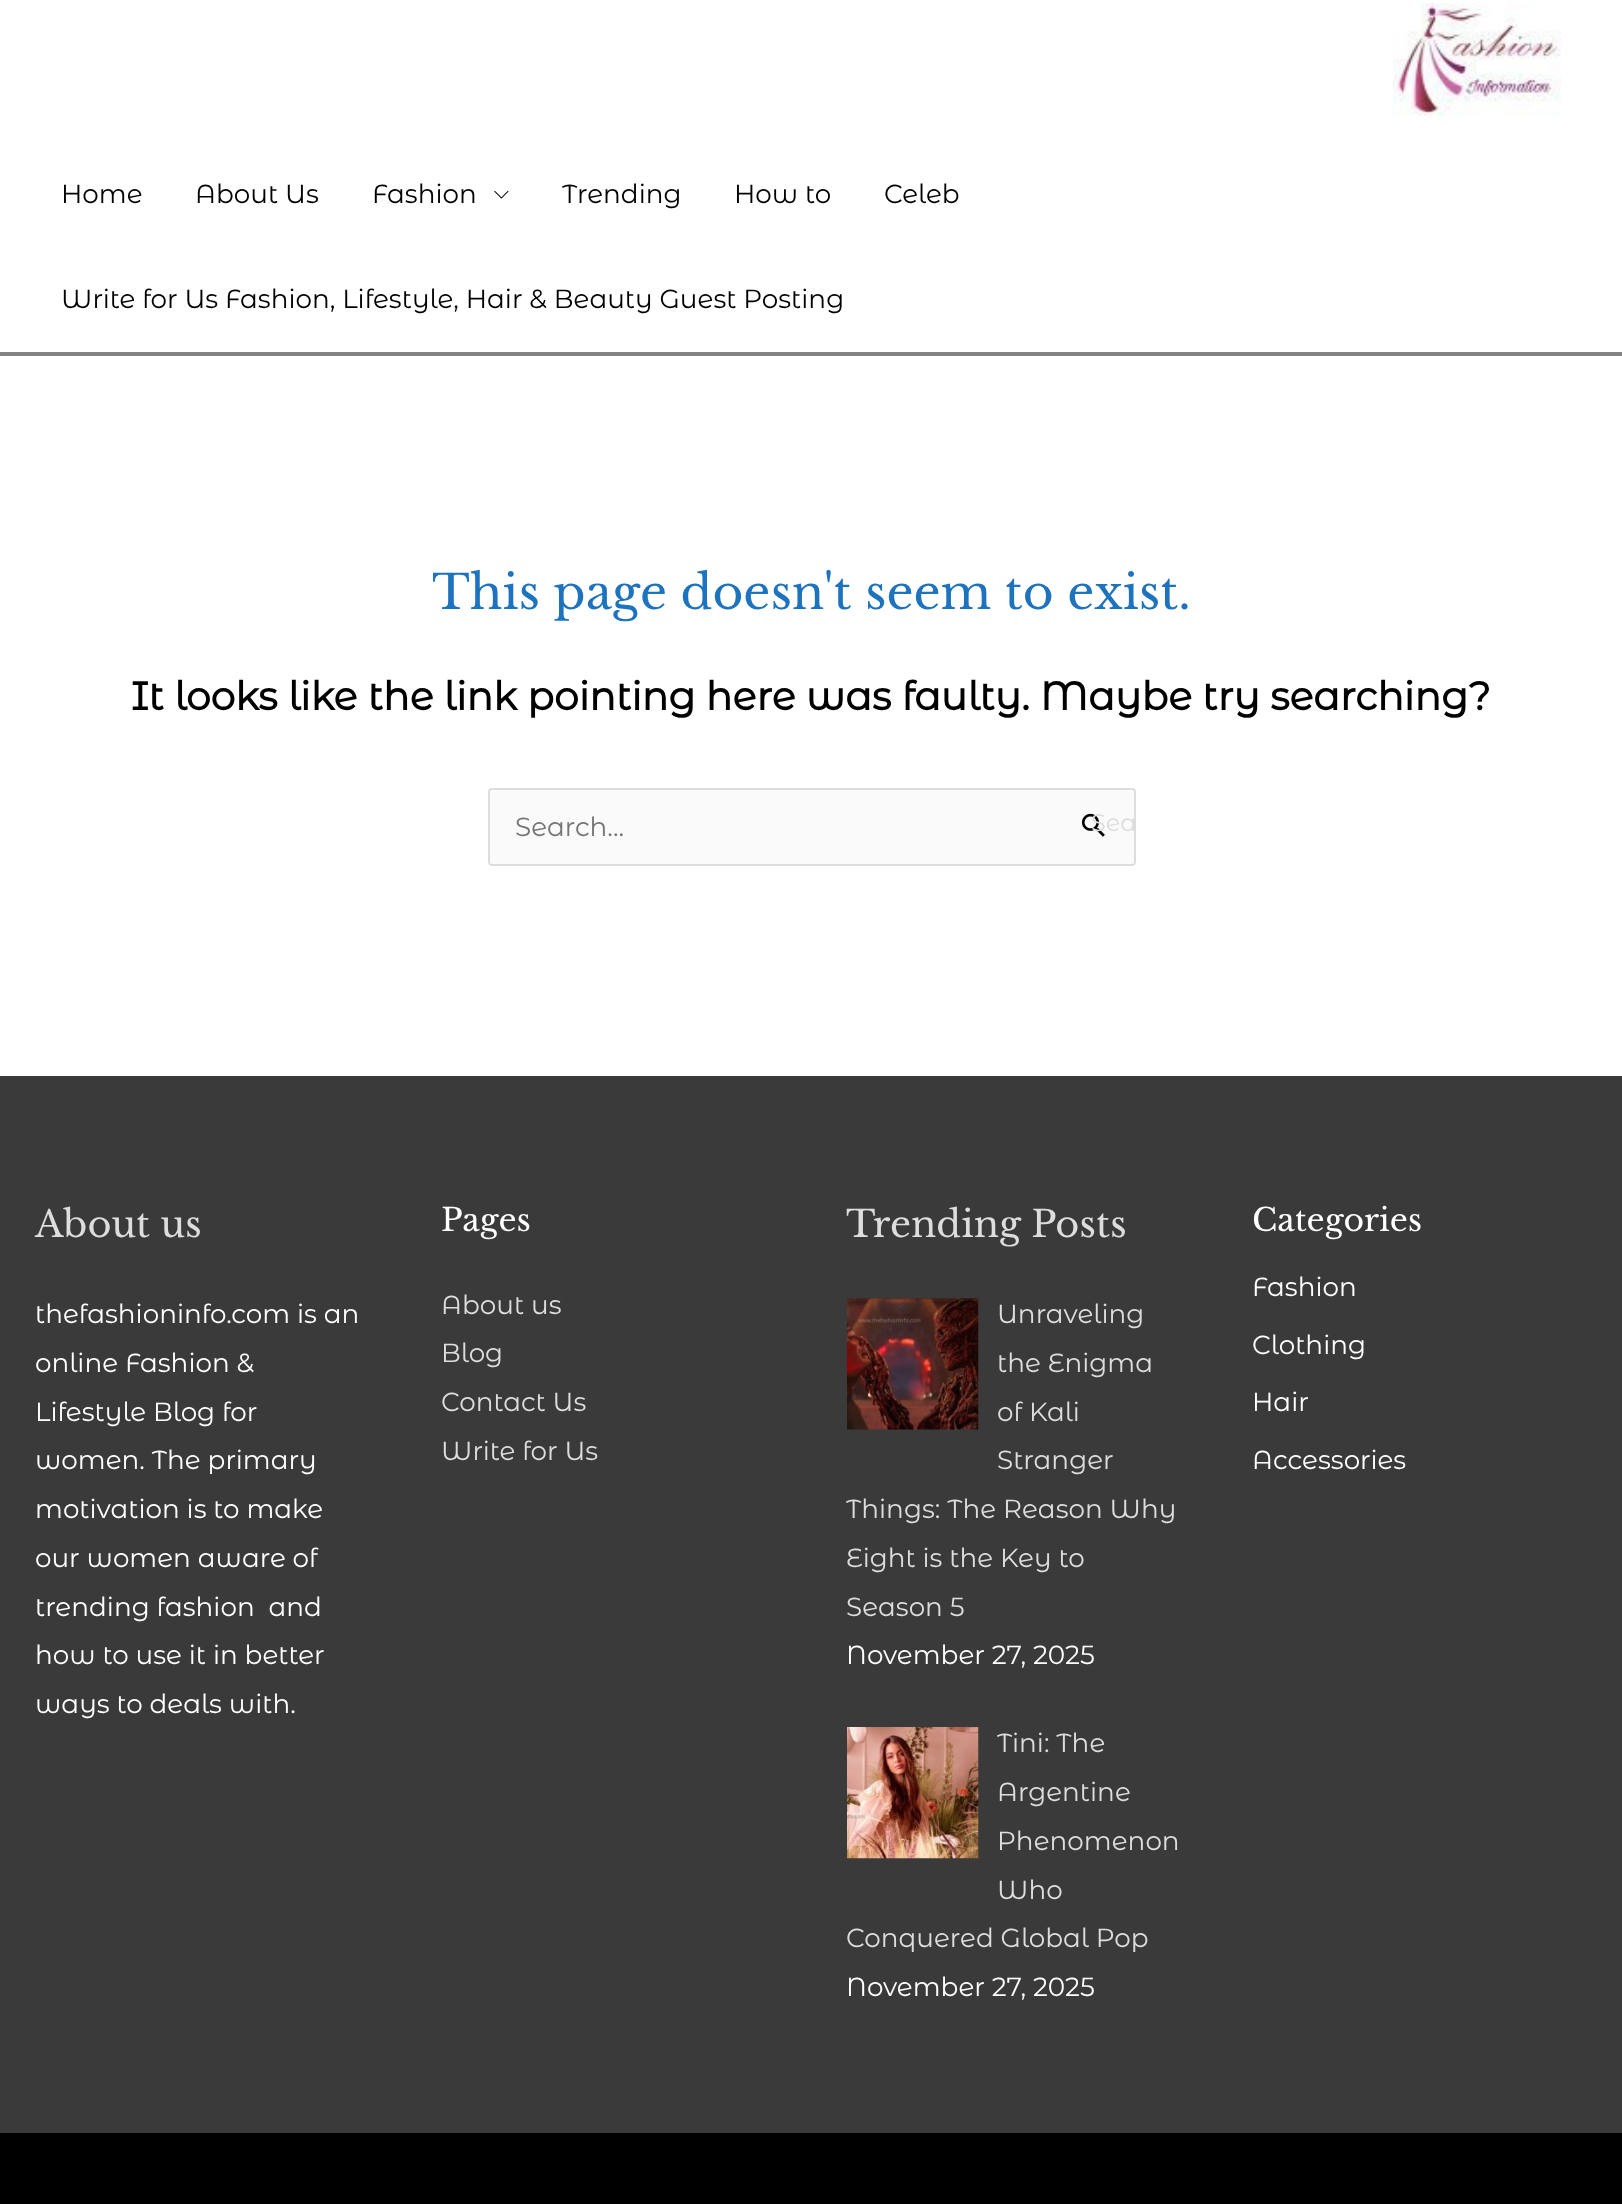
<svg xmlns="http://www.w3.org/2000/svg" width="1622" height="2204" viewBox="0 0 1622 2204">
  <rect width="100%" height="100%" fill="#ffffff"/>
  <rect x="0" y="352" width="1622" height="4" fill="#848484"/>
  <image x="1393" y="3" width="168" height="113" href="img1.png"/>
  <text x="61" y="203" font-family="Montserrat Alternates" font-size="26.25" fill="#000000">Home</text>
  <text x="195" y="203" font-family="Montserrat Alternates" font-size="26.25" fill="#000000">About Us</text>
  <text x="372" y="203" font-family="Montserrat Alternates" font-size="26.25" fill="#000000">Fashion</text>
  <image x="494" y="190" width="15" height="9" href="img2.png"/>
  <text x="562" y="203" font-family="Montserrat Alternates" font-size="26.25" fill="#000000">Trending</text>
  <text x="734" y="203" font-family="Montserrat Alternates" font-size="26.25" fill="#000000">How to</text>
  <text x="884" y="203" font-family="Montserrat Alternates" font-size="26.25" fill="#000000">Celeb</text>
  <text x="61" y="308" font-family="Montserrat Alternates" font-size="26.25" fill="#000000">Write for Us Fashion, Lifestyle, Hair &amp; Beauty Guest Posting</text>
  <text x="432" y="609" font-family="Libre Baskerville" font-size="47.25" fill="#1e73be">This page doesn't seem to exist.</text>
  <text x="131" y="710" font-family="Montserrat Alternates" font-size="39.4" font-weight="bold" fill="#000000">It looks like the link pointing here was faulty. Maybe try searching?</text>
  <rect x="489" y="789" width="646" height="76" rx="3" fill="#fafafa" stroke="#dddddd" stroke-width="2"/>
  <image x="1081" y="813" width="24" height="24" href="img3.png"/>
  <text x="515" y="836" font-family="Montserrat Alternates" font-size="26.25" fill="#757575">Search...</text>
  <text x="1091" y="831" font-family="Montserrat Alternates" font-size="24" fill="#dddddd">Sea</text>
  <rect x="0" y="1076" width="1622" height="1057" fill="#3a3a3a"/>
  <text x="35" y="1237" font-family="Libre Baskerville" font-size="36.75" fill="#dddddd">About us</text>
  <text x="35" y="1323" font-family="Montserrat Alternates" font-size="26.25" fill="#ffffff">thefashioninfo.com is an</text>
  <text x="35" y="1372" font-family="Montserrat Alternates" font-size="26.25" fill="#ffffff">online Fashion &amp;</text>
  <text x="35" y="1421" font-family="Montserrat Alternates" font-size="26.25" fill="#ffffff">Lifestyle Blog for</text>
  <text x="35" y="1469" font-family="Montserrat Alternates" font-size="26.25" fill="#ffffff">women. The primary</text>
  <text x="35" y="1518" font-family="Montserrat Alternates" font-size="26.25" fill="#ffffff">motivation is to make</text>
  <text x="35" y="1567" font-family="Montserrat Alternates" font-size="26.25" fill="#ffffff">our women aware of</text>
  <text x="35" y="1616" font-family="Montserrat Alternates" font-size="26.25" fill="#ffffff" xml:space="preserve">trending fashion  and</text>
  <text x="35" y="1664" font-family="Montserrat Alternates" font-size="26.25" fill="#ffffff">how to use it in better</text>
  <text x="35" y="1713" font-family="Montserrat Alternates" font-size="26.25" fill="#ffffff">ways to deals with.</text>
  <text x="441" y="1231" font-family="Libre Baskerville" font-size="31.5" fill="#ffffff">Pages</text>
  <text x="441" y="1314" font-family="Montserrat Alternates" font-size="26.25" fill="#dddddd">About us</text>
  <text x="441" y="1362" font-family="Montserrat Alternates" font-size="26.25" fill="#dddddd">Blog</text>
  <text x="441" y="1411" font-family="Montserrat Alternates" font-size="26.25" fill="#dddddd">Contact Us</text>
  <text x="441" y="1460" font-family="Montserrat Alternates" font-size="26.25" fill="#dddddd">Write for Us</text>
  <text x="846" y="1237" font-family="Libre Baskerville" font-size="36.75" fill="#dddddd">Trending Posts</text>
  <image x="847" y="1298" width="132" height="132" href="img4.png"/>
  <text x="997" y="1323" font-family="Montserrat Alternates" font-size="26.25" fill="#dddddd">Unraveling‍‌‍‍‌</text>
  <text x="997" y="1372" font-family="Montserrat Alternates" font-size="26.25" fill="#dddddd">the Enigma</text>
  <text x="997" y="1421" font-family="Montserrat Alternates" font-size="26.25" fill="#dddddd">of Kali</text>
  <text x="997" y="1469" font-family="Montserrat Alternates" font-size="26.25" fill="#dddddd">Stranger</text>
  <text x="846" y="1518" font-family="Montserrat Alternates" font-size="26.25" fill="#dddddd">Things: The Reason Why</text>
  <text x="846" y="1567" font-family="Montserrat Alternates" font-size="26.25" fill="#dddddd">Eight is the Key to</text>
  <text x="846" y="1616" font-family="Montserrat Alternates" font-size="26.25" fill="#dddddd">Season 5</text>
  <text x="846" y="1664" font-family="Montserrat Alternates" font-size="26.25" fill="#ffffff">November 27, 2025</text>
  <image x="847" y="1727" width="132" height="132" href="img5.png"/>
  <text x="997" y="1752" font-family="Montserrat Alternates" font-size="26.25" fill="#dddddd">Tini:‍‌‍‍‌ The</text>
  <text x="997" y="1801" font-family="Montserrat Alternates" font-size="26.25" fill="#dddddd">Argentine</text>
  <text x="997" y="1850" font-family="Montserrat Alternates" font-size="26.25" fill="#dddddd">Phenomenon</text>
  <text x="997" y="1899" font-family="Montserrat Alternates" font-size="26.25" fill="#dddddd">Who</text>
  <text x="846" y="1947" font-family="Montserrat Alternates" font-size="26.25" fill="#dddddd">Conquered Global Pop</text>
  <text x="846" y="1996" font-family="Montserrat Alternates" font-size="26.25" fill="#ffffff">November 27, 2025</text>
  <text x="1252" y="1231" font-family="Libre Baskerville" font-size="31.5" fill="#ffffff">Categories</text>
  <text x="1252" y="1296" font-family="Montserrat Alternates" font-size="26.25" fill="#ffffff">Fashion</text>
  <text x="1252" y="1354" font-family="Montserrat Alternates" font-size="26.25" fill="#ffffff">Clothing</text>
  <text x="1252" y="1411" font-family="Montserrat Alternates" font-size="26.25" fill="#ffffff">Hair</text>
  <text x="1252" y="1469" font-family="Montserrat Alternates" font-size="26.25" fill="#ffffff">Accessories</text>
  <rect x="0" y="2133" width="1622" height="71" fill="#000000"/>
</svg>
